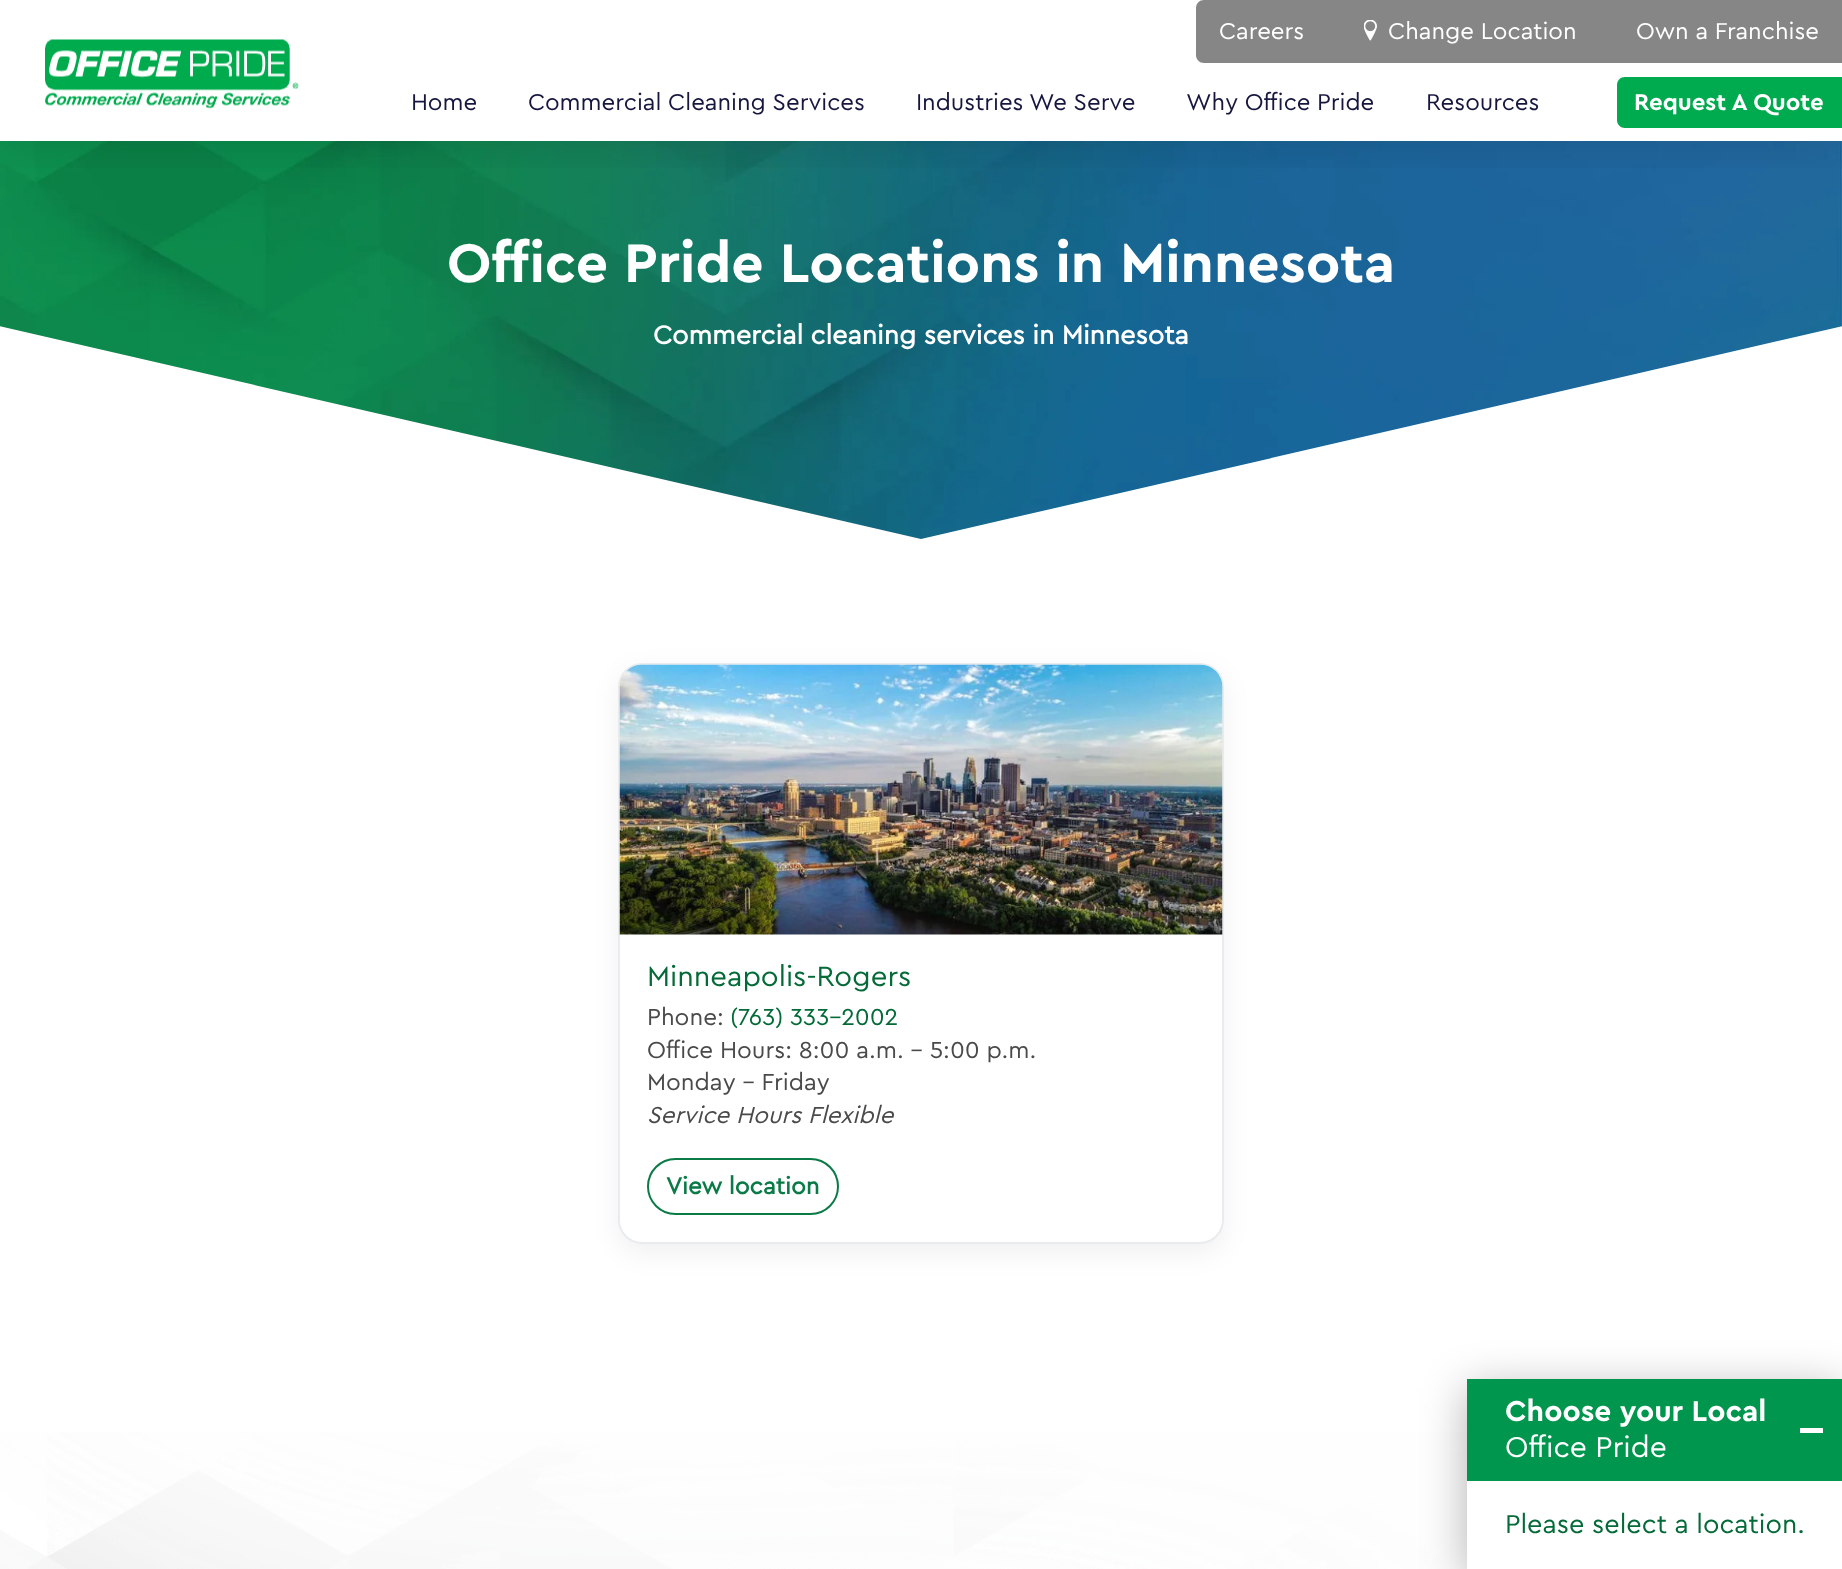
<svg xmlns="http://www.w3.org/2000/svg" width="1842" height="1569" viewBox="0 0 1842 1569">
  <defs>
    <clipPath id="clip1"><rect x="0" y="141" width="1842" height="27"/></clipPath>
    <filter id="blur1" x="-50%" y="-200%" width="200%" height="500%"><feGaussianBlur stdDeviation="22.5"/></filter>
    <filter id="blur2" x="-50%" y="-200%" width="200%" height="500%"><feGaussianBlur stdDeviation="13.5"/></filter>
  </defs>
  <rect width="100%" height="100%" fill="#ffffff"/>
  <image x="0" y="141" width="1842" height="398" href="img3.png"/>
  <g clip-path="url(#clip1)">
    <rect x="0" y="8" width="1842" height="141" fill="#000000" fill-opacity="0.1" filter="url(#blur1)"/>
  </g>
  <image x="45" y="39" width="254" height="70" href="img1.png"/>
  <path d="M1204 0H1842V63H1204C1199.5 63 1196 59.5 1196 55V8C1196 3.5 1199.5 0 1204 0Z" fill="#868686"/>
  <text x="1219" y="39" font-family="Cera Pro" font-size="24" fill="#ffffff">Careers</text>
  <image x="1364" y="20" width="13" height="21" href="img2.png"/>
  <text x="1388" y="39" font-family="Cera Pro" font-size="24" fill="#ffffff">Change Location</text>
  <text x="1636" y="39" font-family="Cera Pro" font-size="24" fill="#ffffff">Own a Franchise</text>
  <text x="411" y="110" font-family="Cera Pro" font-size="24" fill="#16163f">Home</text>
  <text x="528" y="110" font-family="Cera Pro" font-size="24" fill="#16163f">Commercial Cleaning Services</text>
  <text x="916" y="110" font-family="Cera Pro" font-size="24" fill="#16163f">Industries We Serve</text>
  <text x="1186" y="110" font-family="Cera Pro" font-size="24" fill="#16163f">Why Office Pride</text>
  <text x="1426" y="110" font-family="Cera Pro" font-size="24" fill="#16163f">Resources</text>
  <path d="M1625 77H1842V128H1625C1620.5 128 1617 124.5 1617 120V85C1617 80.5 1620.5 77 1625 77Z" fill="#00aa4e"/>
  <text x="1634" y="110" font-family="Cera Pro" font-size="24" font-weight="bold" fill="#ffffff">Request A Quote</text>
  <text x="447" y="282" font-family="Cera Pro" font-size="57" font-weight="bold" fill="#ffffff">Office Pride Locations in Minnesota</text>
  <text x="653" y="344" font-family="'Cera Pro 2'" font-size="27" font-weight="bold" fill="#ffffff">Commercial cleaning services in Minnesota</text>
  <path d="M921 539L-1 326V550H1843V326Z" fill="#ffffff"/>
  <rect x="618" y="672" width="606" height="581" rx="24" fill="#000000" fill-opacity="0.06" filter="url(#blur2)"/>
  <rect x="619" y="664" width="604" height="579" rx="23" fill="#ffffff" stroke="#e9ecef" stroke-width="2"/>
  <image x="619" y="664" width="604" height="271" href="img4.png"/>
  <text x="647" y="986" font-family="Cera Pro" font-size="29.25" fill="#046a38">Minneapolis-Rogers</text>
  <text x="647" y="1025" font-family="Cera Pro" font-size="24.25" fill="#4a4a4a">Phone:</text>
  <text x="730" y="1025" font-family="Cera Pro" font-size="24.25" fill="#046a38">(763) 333-2002</text>
  <text x="647" y="1058" font-family="Cera Pro" font-size="24.25" fill="#4a4a4a">Office Hours: 8:00 a.m. - 5:00 p.m.</text>
  <text x="647" y="1090" font-family="Cera Pro" font-size="24.25" fill="#4a4a4a">Monday – Friday</text>
  <text x="647" y="1123" font-family="Cera Pro" font-size="24.25" font-style="italic" fill="#4a4a4a">Service Hours Flexible</text>
  <rect x="648" y="1159" width="190" height="55" rx="27.5" fill="none" stroke="#0a7a46" stroke-width="2"/>
  <text x="666" y="1194" font-family="'Cera Pro 2'" font-size="24.25" font-weight="bold" fill="#0a7a46">View location</text>
  <image x="0" y="1432" width="1467" height="137" href="img5.png"/>
  <rect x="1467" y="1389" width="375" height="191" fill="#000000" fill-opacity="0.3" filter="url(#blur1)"/>
  <rect x="1467" y="1481" width="375" height="88" fill="#ffffff"/>
  <rect x="1467" y="1379" width="375" height="102" fill="#00964d"/>
  <text x="1505" y="1421" font-family="Cera Pro" font-size="30" font-weight="bold" fill="#ffffff">Choose your Local</text>
  <rect x="1800" y="1428" width="23" height="5" fill="#ffffff"/>
  <text x="1505" y="1457" font-family="Cera Pro" font-size="30" fill="#ffffff">Office Pride</text>
  <text x="1505" y="1533" font-family="Cera Pro" font-size="27" fill="#046a38">Please select a location.</text>
</svg>
